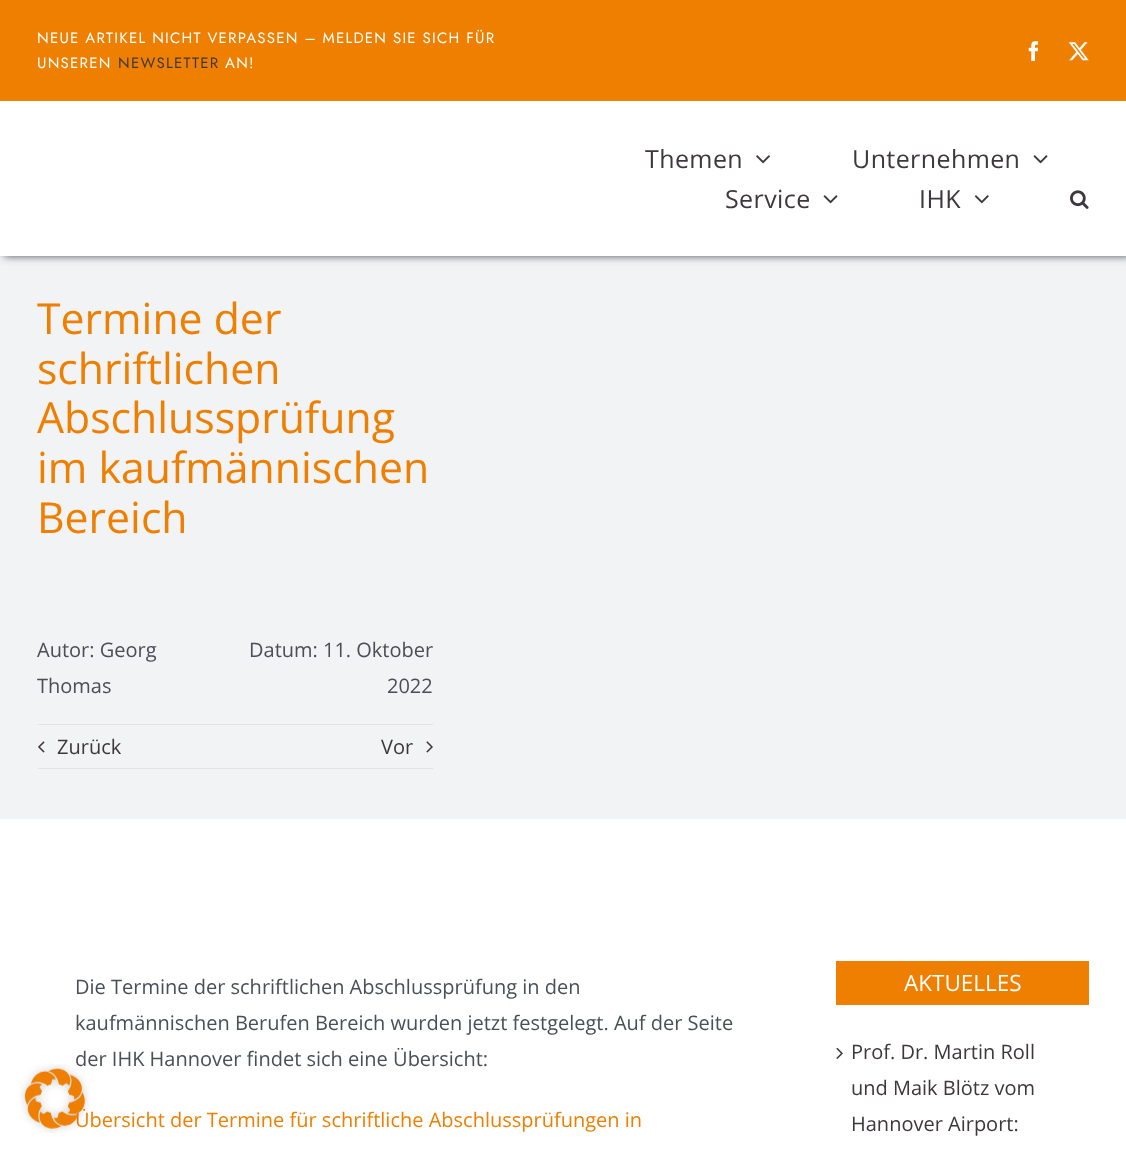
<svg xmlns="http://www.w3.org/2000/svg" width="1126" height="1153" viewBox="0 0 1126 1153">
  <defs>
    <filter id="blur1" x="-50%" y="-200%" width="200%" height="500%"><feGaussianBlur stdDeviation="4"/></filter>
  </defs>
  <rect width="100%" height="100%" fill="#ffffff"/>
  <rect x="0" y="256" width="1126" height="563" fill="#f2f3f5"/>
  <rect x="4" y="101" width="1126" height="155" fill="#4a4e57" filter="url(#blur1)"/>
  <rect x="0" y="0" width="1126" height="101" fill="#ee7f01"/>
  <text x="37" y="43" font-family="Jost" font-size="15" letter-spacing="1.25" fill="#ffffff">NEUE ARTIKEL NICHT VERPASSEN – MELDEN SIE SICH FÜR</text>
  <text x="37" y="68" font-family="Jost" font-size="15" letter-spacing="1.25" fill="#ffffff">UNSEREN</text>
  <text x="118" y="68" font-family="Jost" font-size="15" letter-spacing="1.25" fill="#3e373c">NEWSLETTER</text>
  <text x="225" y="68" font-family="Jost" font-size="15" letter-spacing="1.25" fill="#ffffff">AN!</text>
  <image x="1028" y="41" width="11" height="20" href="img1.png"/>
  <image x="1068" y="42" width="21" height="19" href="img2.png"/>
  <rect x="0" y="101" width="1126" height="155" fill="#ffffff"/>
  <text x="645" y="168" font-family="Open Sans" font-size="25" letter-spacing="0.4" fill="#3e373c">Themen</text>
  <image x="756" y="155" width="14" height="9" href="img3.png"/>
  <text x="852" y="168" font-family="Open Sans" font-size="25" letter-spacing="0.4" fill="#3e373c">Unternehmen</text>
  <image x="1033" y="155" width="15" height="9" href="img4.png"/>
  <text x="725" y="208" font-family="Open Sans" font-size="25" letter-spacing="0.4" fill="#3e373c">Service</text>
  <image x="823" y="195" width="15" height="9" href="img4.png"/>
  <text x="919" y="208" font-family="Open Sans" font-size="25" letter-spacing="0.4" fill="#3e373c">IHK</text>
  <image x="974" y="195" width="15" height="9" href="img5.png"/>
  <image x="1070" y="190" width="19" height="19" href="img6.png"/>
  <text x="37" y="334" font-family="Open Sans" font-size="42.75" fill="#ee7f01">Termine der</text>
  <text x="37" y="384" font-family="Open Sans" font-size="42.75" fill="#ee7f01">schriftlichen</text>
  <text x="37" y="433" font-family="Open Sans" font-size="42.75" fill="#ee7f01">Abschlussprüfung</text>
  <text x="37" y="483" font-family="Open Sans" font-size="42.75" fill="#ee7f01">im kaufmännischen</text>
  <text x="37" y="533" font-family="Open Sans" font-size="42.75" fill="#ee7f01">Bereich</text>
  <text x="37" y="657" font-family="Open Sans" font-size="20" fill="#4a4e57">Autor: Georg</text>
  <text x="37" y="693" font-family="Open Sans" font-size="20" fill="#4a4e57">Thomas</text>
  <text x="249" y="657" font-family="Open Sans" font-size="20" fill="#4a4e57">Datum: 11. Oktober</text>
  <text x="387" y="693" font-family="Open Sans" font-size="20" fill="#4a4e57">2022</text>
  <rect x="38" y="724" width="395" height="1" fill="#e2e2e2"/>
  <rect x="38" y="768" width="395" height="1" fill="#e2e2e2"/>
  <image x="38" y="741" width="7" height="12" href="img7.png"/>
  <text x="57" y="754" font-family="Open Sans" font-size="20" fill="#3e373c">Zurück</text>
  <text x="381" y="754" font-family="Open Sans" font-size="20" fill="#3e373c">Vor</text>
  <image x="426" y="741" width="7" height="12" href="img8.png"/>
  <text x="75" y="994" font-family="Open Sans" font-size="20" fill="#4a4e57">Die Termine der schriftlichen Abschlussprüfung in den</text>
  <text x="75" y="1030" font-family="Open Sans" font-size="20" fill="#4a4e57">kaufmännischen Berufen Bereich wurden jetzt festgelegt. Auf der Seite</text>
  <text x="75" y="1066" font-family="Open Sans" font-size="20" fill="#4a4e57">der IHK Hannover findet sich eine Übersicht:</text>
  <text x="75" y="1127" font-family="Open Sans" font-size="20" fill="#ee7f01">Übersicht der Termine für schriftliche Abschlussprüfungen in</text>
  <rect x="836" y="961" width="253" height="44" fill="#ee7f01"/>
  <text x="904" y="991" font-family="Open Sans" font-size="22.5" fill="#ffffff">AKTUELLES</text>
  <image x="836" y="1047" width="7" height="12" href="img9.png"/>
  <text x="851" y="1059" font-family="Open Sans" font-size="20" fill="#3e373c">Prof. Dr. Martin Roll</text>
  <text x="851" y="1095" font-family="Open Sans" font-size="20" fill="#3e373c">und Maik Blötz vom</text>
  <text x="851" y="1131" font-family="Open Sans" font-size="20" fill="#3e373c">Hannover Airport:</text>
  <image x="20" y="1064" width="70" height="69" href="img10.png"/>
</svg>
